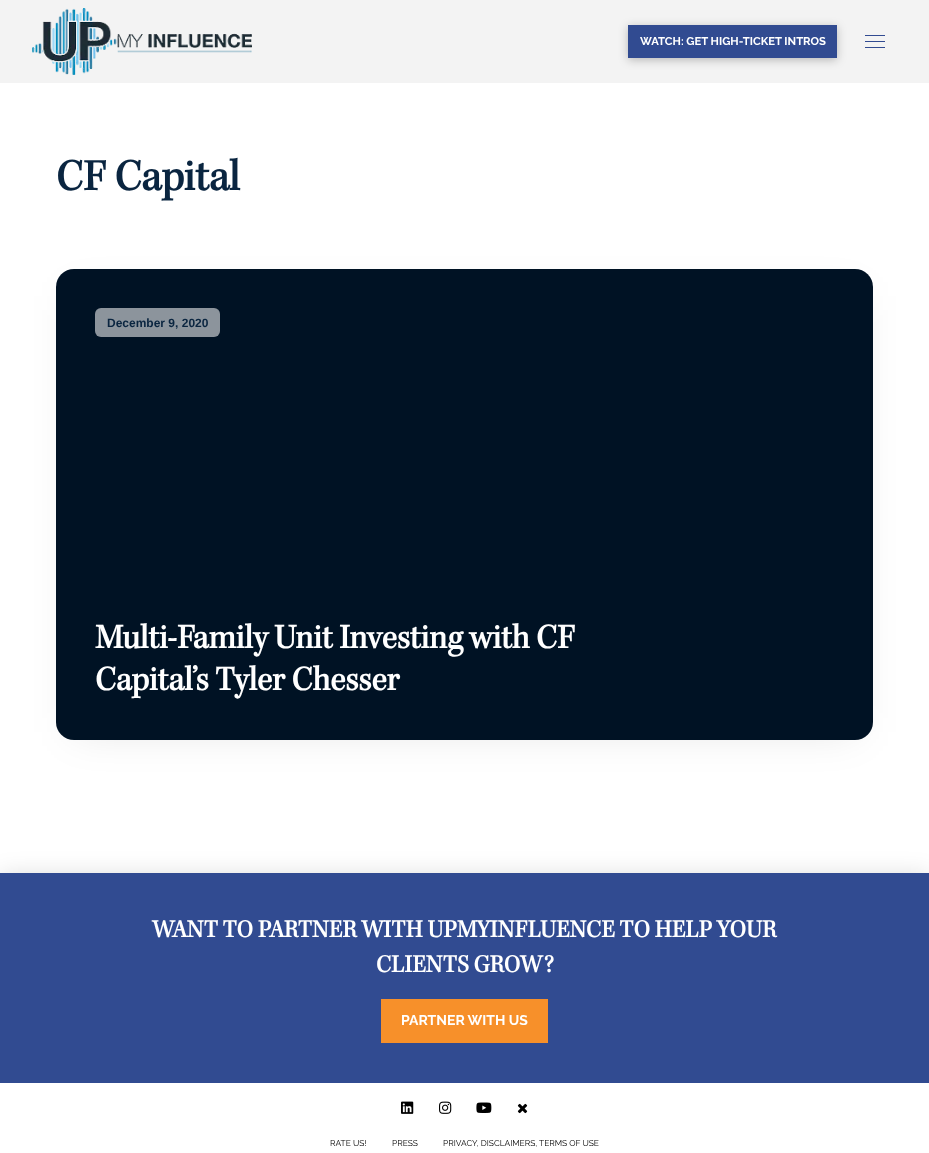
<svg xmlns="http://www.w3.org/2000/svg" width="929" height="1153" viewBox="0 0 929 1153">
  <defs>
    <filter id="blur1" x="-50%" y="-200%" width="200%" height="500%"><feGaussianBlur stdDeviation="5"/></filter>
    <filter id="blur2" x="-50%" y="-200%" width="200%" height="500%"><feGaussianBlur stdDeviation="21"/></filter>
    <filter id="blur3" x="-50%" y="-200%" width="200%" height="500%"><feGaussianBlur stdDeviation="12.5"/></filter>
  </defs>
  <rect width="100%" height="100%" fill="#f3f3f3"/>
  <image x="32" y="8" width="220" height="67" href="img1.png"/>
  <rect x="628" y="27" width="209" height="33" fill="#000000" fill-opacity="0.25" filter="url(#blur1)"/>
  <rect x="628" y="25" width="209" height="33" fill="#314b91"/>
  <text x="640" y="45" font-family="Raleway" font-size="11.25" font-weight="bold" fill="#ffffff">WATCH: GET HIGH-TICKET INTROS</text>
  <rect x="865" y="35" width="20" height="1" fill="#314b91"/>
  <rect x="865" y="41" width="20" height="1" fill="#314b91"/>
  <rect x="865" y="47" width="20" height="1" fill="#314b91"/>
  <rect x="0" y="83" width="929" height="790" fill="#ffffff"/>
  <text x="56" y="190" font-family="'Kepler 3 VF'" font-size="45" font-weight="bold" fill="#0a2540">CF Capital</text>
  <rect x="74" y="296" width="782" height="436" rx="0.5" fill="#001224" fill-opacity="0.11" filter="url(#blur2)"/>
  <rect x="56" y="269" width="817" height="471" rx="18" fill="#001224"/>
  <rect x="95" y="308" width="125" height="29" rx="6" fill="#8c949c"/>
  <text x="107" y="327" font-family="Liberation Sans" font-size="12" font-weight="bold" fill="#0a2540">December 9, 2020</text>
  <text x="95" y="648" font-family="'Kepler 3 VF'" font-size="35" font-weight="bold" fill="#ffffff">Multi-Family Unit Investing with CF</text>
  <text x="95" y="690" font-family="'Kepler 3 VF'" font-size="35" font-weight="bold" fill="#ffffff">Capital’s Tyler Chesser</text>
  <rect x="0" y="1133" width="929" height="20" fill="#ffffff"/>
  <rect x="0" y="876" width="929" height="210" fill="#000000" fill-opacity="0.15" filter="url(#blur3)"/>
  <rect x="0" y="873" width="929" height="210" fill="#314b91"/>
  <text x="152" y="937" font-family="'Kepler 3 VF'" font-size="25.2" font-weight="bold" fill="#ffffff">WANT TO PARTNER WITH UPMYINFLUENCE TO HELP YOUR</text>
  <text x="376" y="972" font-family="'Kepler 3 VF'" font-size="25.2" font-weight="bold" fill="#ffffff">CLIENTS GROW?</text>
  <rect x="381" y="999" width="167" height="44" fill="#f7902a"/>
  <text x="401" y="1025" font-family="Raleway" font-size="14" font-weight="bold" fill="#ffffff">PARTNER WITH US</text>
  <rect x="0" y="1083" width="929" height="50" fill="#ffffff"/>
  <image x="401" y="1101" width="13" height="13" href="img2.png"/>
  <image x="439" y="1101" width="13" height="13" href="img3.png"/>
  <image x="476" y="1102" width="16" height="11" href="img4.png"/>
  <image x="517" y="1103" width="11" height="11" href="img5.png"/>
  <text x="330" y="1146" font-family="Raleway" font-size="8.4" fill="#000000">RATE US!</text>
  <text x="392" y="1146" font-family="Raleway" font-size="8.4" fill="#000000">PRESS</text>
  <text x="443" y="1146" font-family="Raleway" font-size="8.4" fill="#000000">PRIVACY, DISCLAIMERS, TERMS OF USE</text>
</svg>
